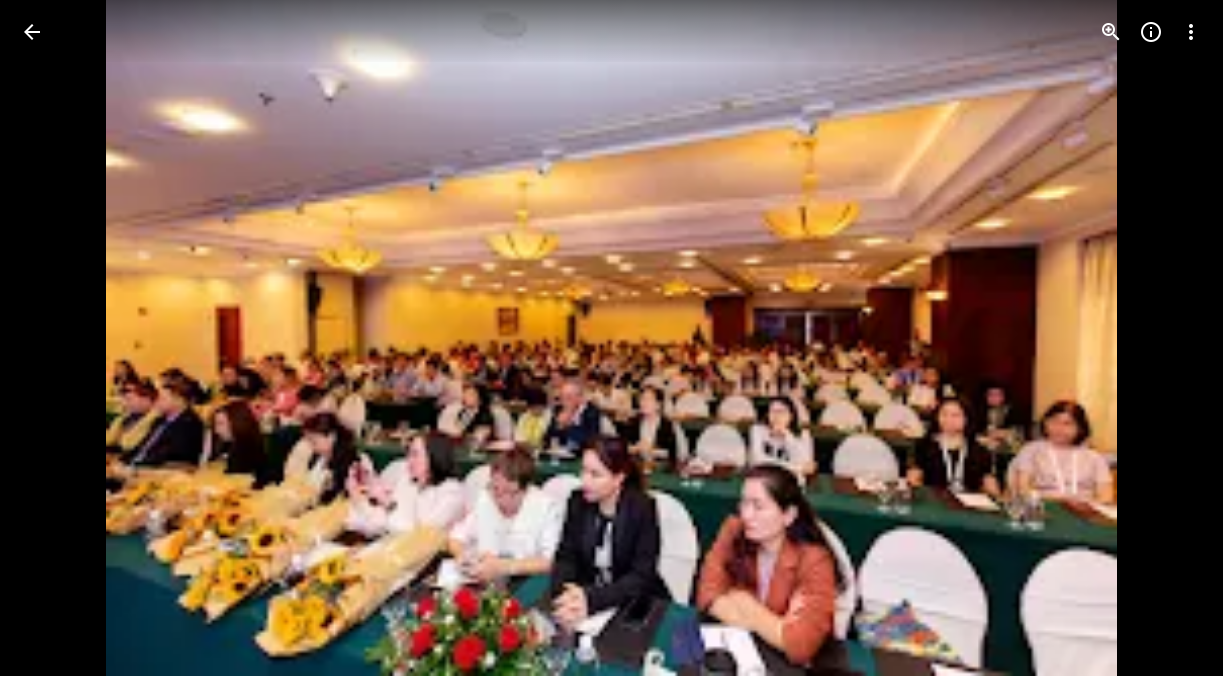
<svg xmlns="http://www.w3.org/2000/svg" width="1223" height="676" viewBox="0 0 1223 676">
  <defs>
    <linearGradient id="g1" gradientUnits="userSpaceOnUse" x1="612" y1="0" x2="612" y2="64"><stop offset="0" stop-color="#000000" stop-opacity="0.6"/><stop offset="1" stop-color="#000000" stop-opacity="0"/></linearGradient>
  </defs>
  <rect width="100%" height="100%" fill="#000000"/>
  <image x="106" y="0" width="1011" height="676" href="img5.png"/>
  <rect x="106" y="0" width="1011" height="62" fill="url(#g1)"/>
  <image x="24" y="24" width="16" height="16" href="img1.png"/>
  <image x="1102" y="23" width="18" height="18" href="img2.png"/>
  <image x="1141" y="22" width="20" height="20" href="img3.png"/>
  <image x="1189" y="24" width="4" height="16" href="img4.png"/>
</svg>
